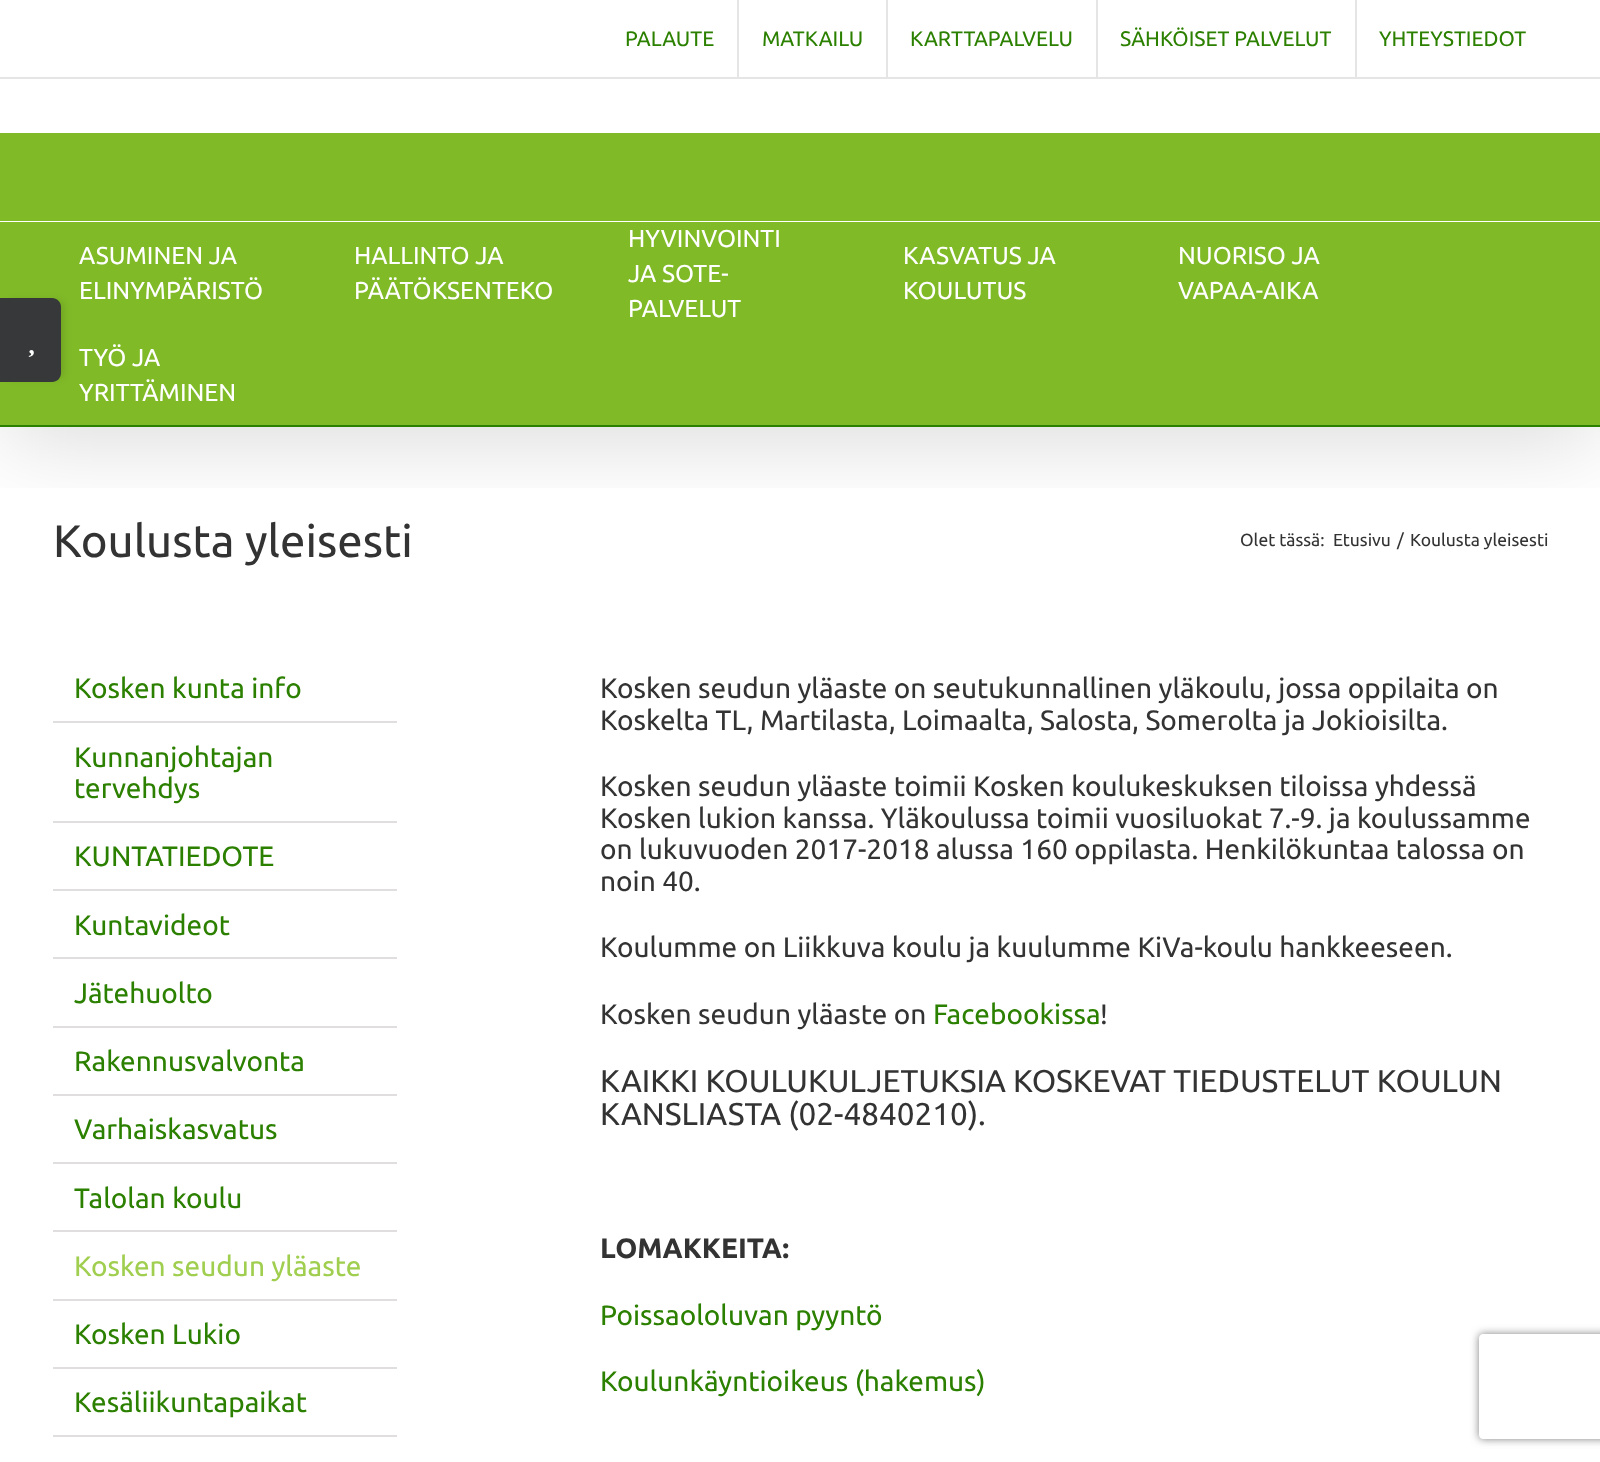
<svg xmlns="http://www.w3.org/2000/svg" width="1600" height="1462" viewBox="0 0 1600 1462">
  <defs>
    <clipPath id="clip1"><rect x="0" y="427" width="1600" height="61"/></clipPath>
    <filter id="blur1" x="-50%" y="-200%" width="200%" height="500%"><feGaussianBlur stdDeviation="44"/></filter>
    <filter id="blur2" x="-50%" y="-200%" width="200%" height="500%"><feGaussianBlur stdDeviation="4.5"/></filter>
    <clipPath id="clip2"><path d="M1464 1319H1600V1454H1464ZM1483 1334H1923C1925 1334 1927 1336 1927 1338V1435C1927 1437 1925 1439 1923 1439H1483C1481 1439 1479 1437 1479 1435V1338C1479 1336 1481 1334 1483 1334Z" clip-rule="evenodd"/></clipPath>
  </defs>
  <rect width="100%" height="100%" fill="#ffffff"/>
  <g clip-path="url(#clip1)">
    <rect x="4" y="21" width="1594" height="420" fill="#000000" fill-opacity="0.14" filter="url(#blur1)"/>
  </g>
  <rect x="0" y="222" width="1600" height="203" fill="#80ba27"/>
  <rect x="9" y="301" width="54" height="77" rx="5" fill="#000000" fill-opacity="0.14" filter="url(#blur2)"/>
  <path d="M0 298H52C57 298 61 302 61 307V373C61 378 57 382 52 382H0Z" fill="#363839"/>
  <image x="28" y="350" width="6" height="7" href="img1.png"/>
  <rect x="0" y="77" width="1600" height="2" fill="#e5e5e5"/>
  <text x="625" y="46" font-family="Ubuntu" font-size="21" fill="#2c8000">PALAUTE</text>
  <rect x="737" y="0" width="2" height="77" fill="#e5e5e5"/>
  <text x="762" y="46" font-family="Ubuntu" font-size="21" fill="#2c8000">MATKAILU</text>
  <rect x="886" y="0" width="2" height="77" fill="#e5e5e5"/>
  <text x="910" y="46" font-family="Ubuntu" font-size="21" fill="#2c8000">KARTTAPALVELU</text>
  <rect x="1096" y="0" width="2" height="77" fill="#e5e5e5"/>
  <text x="1120" y="46" font-family="Ubuntu" font-size="21" fill="#2c8000">SÄHKÖISET PALVELUT</text>
  <rect x="1355" y="0" width="2" height="77" fill="#e5e5e5"/>
  <text x="1379" y="46" font-family="Ubuntu" font-size="21" fill="#2c8000">YHTEYSTIEDOT</text>
  <rect x="0" y="133" width="1600" height="88" fill="#80ba27"/>
  <rect x="0" y="425" width="1600" height="2" fill="#2c8000"/>
  <text x="79" y="264" font-family="Ubuntu" font-size="24.5" fill="#ffffff">ASUMINEN JA</text>
  <text x="79" y="299" font-family="Ubuntu" font-size="24.5" fill="#ffffff">ELINYMPÄRISTÖ</text>
  <text x="354" y="264" font-family="Ubuntu" font-size="24.5" fill="#ffffff">HALLINTO JA</text>
  <text x="354" y="299" font-family="Ubuntu" font-size="24.5" fill="#ffffff">PÄÄTÖKSENTEKO</text>
  <text x="628" y="247" font-family="Ubuntu" font-size="24.5" fill="#ffffff">HYVINVOINTI</text>
  <text x="628" y="282" font-family="Ubuntu" font-size="24.5" fill="#ffffff">JA SOTE-</text>
  <text x="628" y="317" font-family="Ubuntu" font-size="24.5" fill="#ffffff">PALVELUT</text>
  <text x="903" y="264" font-family="Ubuntu" font-size="24.5" fill="#ffffff">KASVATUS JA</text>
  <text x="903" y="299" font-family="Ubuntu" font-size="24.5" fill="#ffffff">KOULUTUS</text>
  <text x="1178" y="264" font-family="Ubuntu" font-size="24.5" fill="#ffffff">NUORISO JA</text>
  <text x="1178" y="299" font-family="Ubuntu" font-size="24.5" fill="#ffffff">VAPAA-AIKA</text>
  <text x="79" y="366" font-family="Ubuntu" font-size="24.5" fill="#ffffff">TYÖ JA</text>
  <text x="79" y="401" font-family="Ubuntu" font-size="24.5" fill="#ffffff">YRITTÄMINEN</text>
  <text x="53" y="557" font-family="Ubuntu" font-size="45.5" fill="#333333">Koulusta yleisesti</text>
  <text x="1240" y="546" font-family="Ubuntu" font-size="17.5" fill="#333333">Olet tässä:</text>
  <text x="1333" y="546" font-family="Ubuntu" font-size="17.5" fill="#333333">Etusivu</text>
  <text x="1397" y="546" font-family="Ubuntu" font-size="17.5" fill="#333333">/</text>
  <text x="1410" y="546" font-family="Ubuntu" font-size="17.5" fill="#333333">Koulusta yleisesti</text>
  <rect x="53" y="721" width="344" height="2" fill="#e0dede"/>
  <text x="74" y="698" font-family="Ubuntu" font-size="28" fill="#2c8000">Kosken kunta info</text>
  <rect x="53" y="821" width="344" height="2" fill="#e0dede"/>
  <text x="74" y="767" font-family="Ubuntu" font-size="28" fill="#2c8000">Kunnanjohtajan</text>
  <text x="74" y="798" font-family="Ubuntu" font-size="28" fill="#2c8000">tervehdys</text>
  <rect x="53" y="889" width="344" height="2" fill="#e0dede"/>
  <text x="74" y="866" font-family="Ubuntu" font-size="28" fill="#2c8000">KUNTATIEDOTE</text>
  <rect x="53" y="957" width="344" height="2" fill="#e0dede"/>
  <text x="74" y="935" font-family="Ubuntu" font-size="28" fill="#2c8000">Kuntavideot</text>
  <rect x="53" y="1026" width="344" height="2" fill="#e0dede"/>
  <text x="74" y="1003" font-family="Ubuntu" font-size="28" fill="#2c8000">Jätehuolto</text>
  <rect x="53" y="1094" width="344" height="2" fill="#e0dede"/>
  <text x="74" y="1071" font-family="Ubuntu" font-size="28" fill="#2c8000">Rakennusvalvonta</text>
  <rect x="53" y="1162" width="344" height="2" fill="#e0dede"/>
  <text x="74" y="1139" font-family="Ubuntu" font-size="28" fill="#2c8000">Varhaiskasvatus</text>
  <rect x="53" y="1230" width="344" height="2" fill="#e0dede"/>
  <text x="74" y="1208" font-family="Ubuntu" font-size="28" fill="#2c8000">Talolan koulu</text>
  <rect x="53" y="1299" width="344" height="2" fill="#e0dede"/>
  <text x="74" y="1276" font-family="Ubuntu" font-size="28" fill="#a0ce4e">Kosken seudun yläaste</text>
  <rect x="53" y="1367" width="344" height="2" fill="#e0dede"/>
  <text x="74" y="1344" font-family="Ubuntu" font-size="28" fill="#2c8000">Kosken Lukio</text>
  <rect x="53" y="1435" width="344" height="2" fill="#e0dede"/>
  <text x="74" y="1412" font-family="Ubuntu" font-size="28" fill="#2c8000">Kesäliikuntapaikat</text>
  <text x="600" y="698" font-family="Ubuntu" font-size="28" fill="#333333">Kosken seudun yläaste on seutukunnallinen yläkoulu, jossa oppilaita on</text>
  <text x="600" y="730" font-family="Ubuntu" font-size="28" fill="#333333">Koskelta TL, Martilasta, Loimaalta, Salosta, Somerolta ja Jokioisilta.</text>
  <text x="600" y="796" font-family="Ubuntu" font-size="28" fill="#333333">Kosken seudun yläaste toimii Kosken koulukeskuksen tiloissa yhdessä</text>
  <text x="600" y="828" font-family="Ubuntu" font-size="28" fill="#333333">Kosken lukion kanssa. Yläkoulussa toimii vuosiluokat 7.-9. ja koulussamme</text>
  <text x="600" y="859" font-family="Ubuntu" font-size="28" fill="#333333">on lukuvuoden 2017-2018 alussa 160 oppilasta. Henkilökuntaa talossa on</text>
  <text x="600" y="891" font-family="Ubuntu" font-size="28" fill="#333333">noin 40.</text>
  <text x="600" y="957" font-family="Ubuntu" font-size="28" fill="#333333">Koulumme on Liikkuva koulu ja kuulumme KiVa-koulu hankkeeseen.</text>
  <text x="600" y="1024" font-family="Ubuntu" font-size="28" fill="#333333">Kosken seudun yläaste on</text>
  <text x="933" y="1024" font-family="Ubuntu" font-size="28" fill="#2c8000">Facebookissa</text>
  <text x="1100" y="1024" font-family="Ubuntu" font-size="28" fill="#333333">!</text>
  <text x="600" y="1092" font-family="Ubuntu" font-size="31.5" fill="#333333">KAIKKI KOULUKULJETUKSIA KOSKEVAT TIEDUSTELUT KOULUN</text>
  <text x="600" y="1125" font-family="Ubuntu" font-size="31.5" fill="#333333">KANSLIASTA (02-4840210).</text>
  <text x="600" y="1258" font-family="Ubuntu" font-size="28" font-weight="bold" fill="#333333">LOMAKKEITA:</text>
  <text x="600" y="1325" font-family="Ubuntu" font-size="28" fill="#2c8000">Poissaololuvan pyyntö</text>
  <text x="600" y="1391" font-family="Ubuntu" font-size="28" fill="#2c8000">Koulunkäyntioikeus (hakemus)</text>
  <g clip-path="url(#clip2)">
    <rect x="1479" y="1334" width="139" height="105" rx="4" fill="#808080" filter="url(#blur2)"/>
  </g>
</svg>
